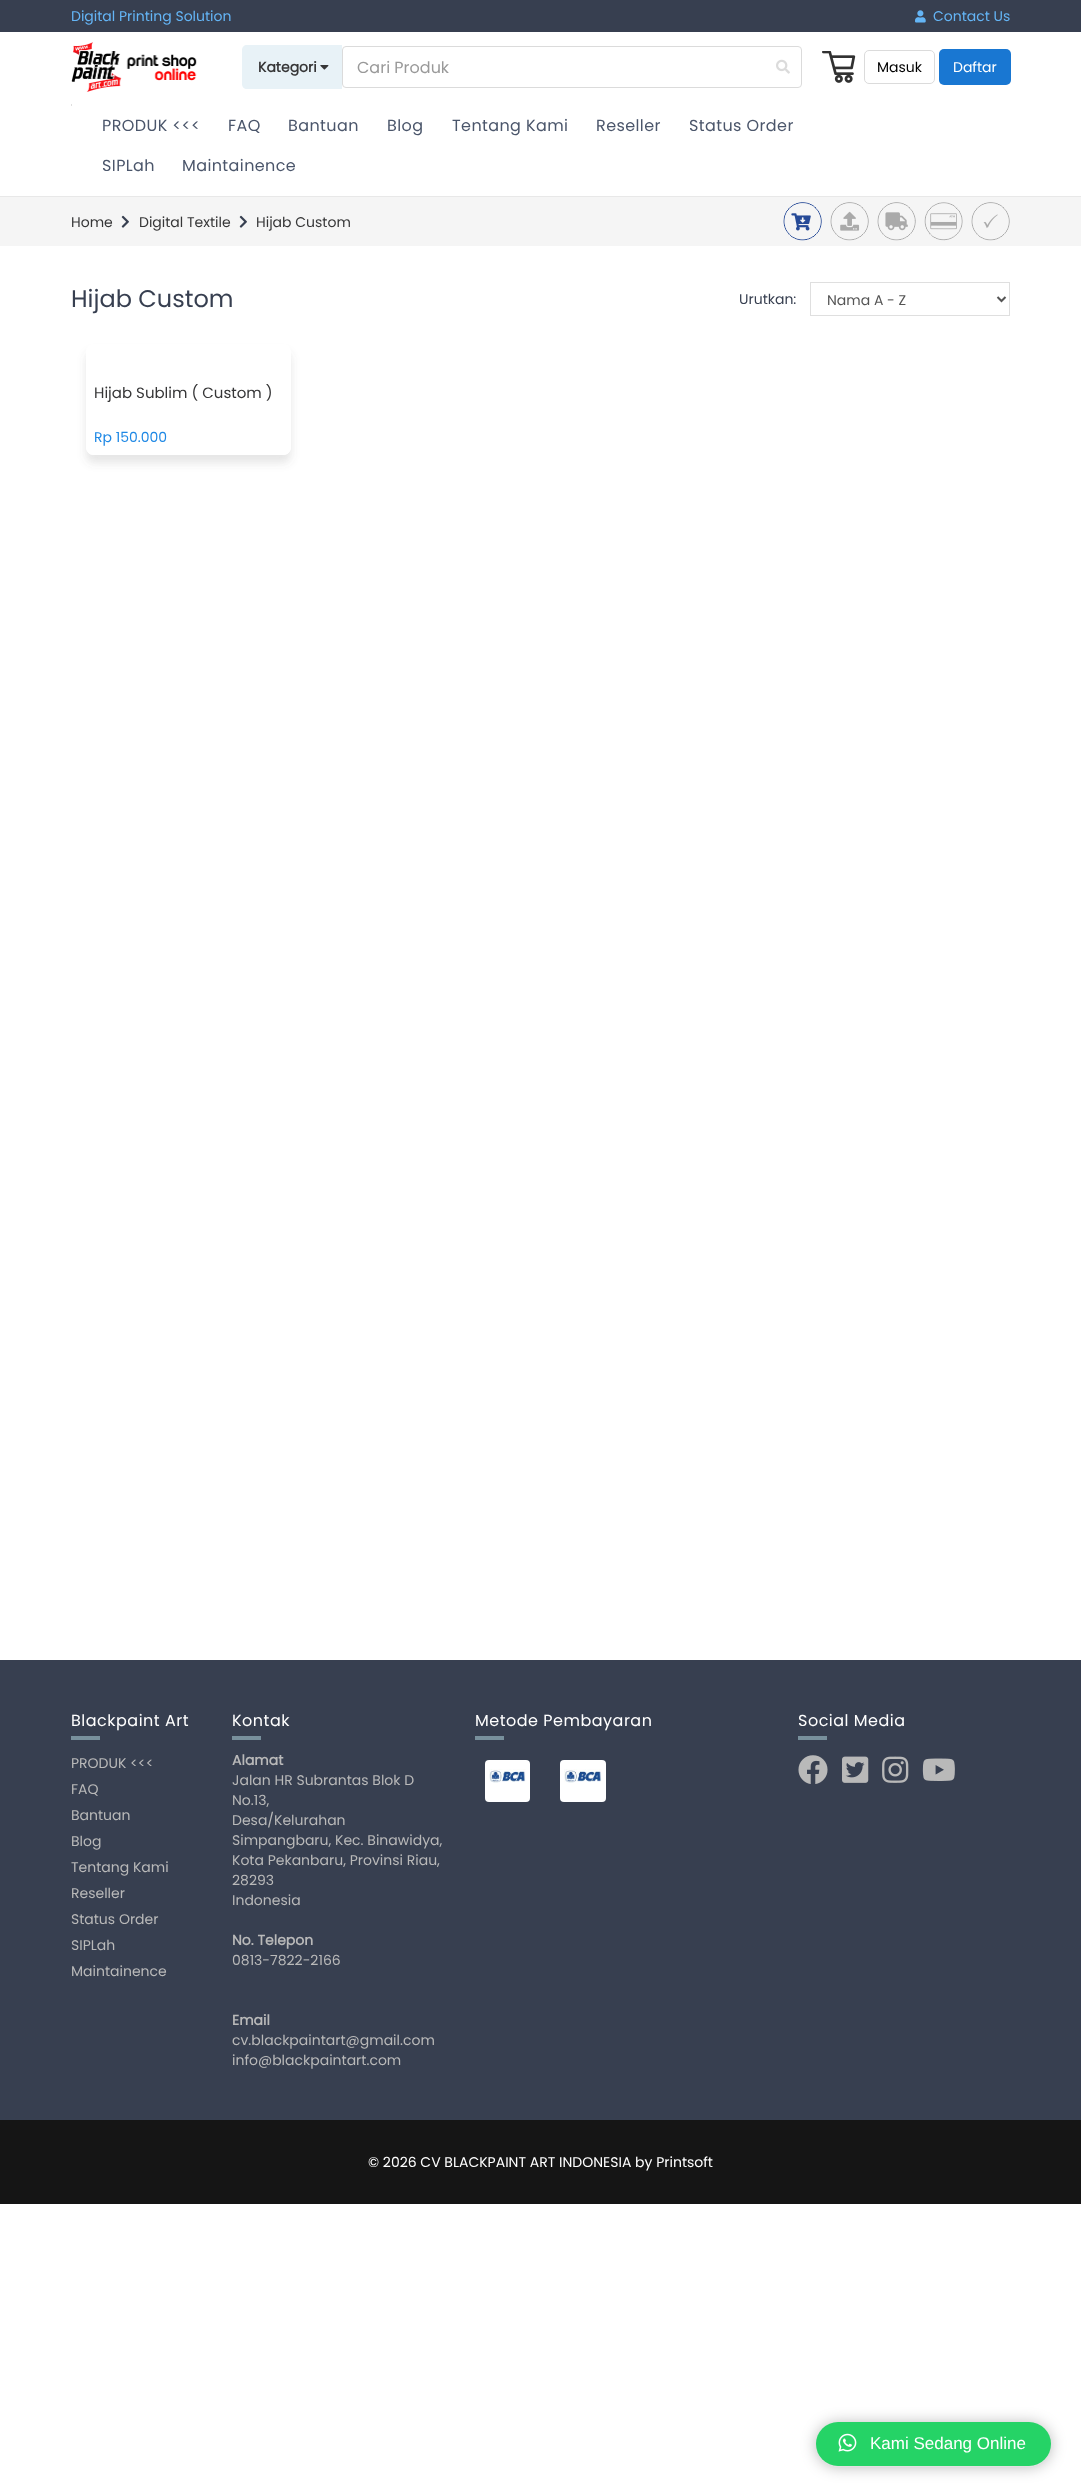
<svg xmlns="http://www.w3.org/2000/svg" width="1081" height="2486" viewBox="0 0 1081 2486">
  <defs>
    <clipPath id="clip1"><path d="M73 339H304V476H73ZM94 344H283C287.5 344 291 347.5 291 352V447C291 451.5 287.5 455 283 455H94C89.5 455 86 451.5 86 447V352C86 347.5 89.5 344 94 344Z" clip-rule="evenodd"/></clipPath>
    <filter id="blur1" x="-50%" y="-200%" width="200%" height="500%"><feGaussianBlur stdDeviation="4"/></filter>
    <filter id="blur2" x="-50%" y="-200%" width="200%" height="500%"><feGaussianBlur stdDeviation="7.5"/></filter>
  </defs>
  <rect width="100%" height="100%" fill="#ffffff"/>
  <rect x="0" y="0" width="1081" height="32" fill="#373f50"/>
  <text x="71" y="21" font-family="Poppins" font-size="14" fill="#64b5f6">Digital Printing Solution</text>
  <image x="915" y="10" width="11" height="13" href="img1.png"/>
  <text x="933" y="21" font-family="Poppins" font-size="14" fill="#64b5f6">Contact Us</text>
  <rect x="0" y="196" width="1081" height="1" fill="#e8e8e8"/>
  <image x="71" y="42" width="126" height="50" href="img2.png"/>
  <path d="M247 45H342V89H247C244 89 242 87 242 84V50C242 47 244 45 247 45Z" fill="#e8f2f7"/>
  <text x="258" y="72" font-family="Poppins" font-size="14" font-weight="bold" fill="#363637">Kategori</text>
  <image x="320" y="65" width="9" height="5" href="img3.png"/>
  <rect x="342.5" y="46.5" width="459" height="41" rx="3.5" fill="none" stroke="#dbdbdb"/>
  <text x="357" y="73" font-family="Poppins" font-size="16" fill="#999999">Cari Produk</text>
  <image x="776" y="59" width="14" height="15" href="img4.png"/>
  <image x="822" y="51" width="34" height="32" href="img5.png"/>
  <rect x="864.5" y="50.5" width="70" height="33" rx="4.5" fill="none" stroke="#dbdbdb"/>
  <text x="877" y="72" font-family="Poppins" font-size="14" fill="#000000">Masuk</text>
  <rect x="939" y="49" width="72" height="36" rx="5" fill="#1977d2"/>
  <text x="953" y="72" font-family="Poppins" font-size="14" fill="#ffffff">Daftar</text>
  <rect x="71" y="104" width="1" height="2" fill="#dfdfdf"/>
  <text x="102" y="131" font-family="Poppins" font-size="16" letter-spacing="0.4" fill="#4b566b">PRODUK &lt;&lt;&lt;</text>
  <text x="228" y="131" font-family="Poppins" font-size="16" letter-spacing="0.4" fill="#4b566b">FAQ</text>
  <text x="288" y="131" font-family="Poppins" font-size="16" letter-spacing="0.4" fill="#4b566b">Bantuan</text>
  <text x="387" y="131" font-family="Poppins" font-size="16" letter-spacing="0.4" fill="#4b566b">Blog</text>
  <text x="452" y="131" font-family="Poppins" font-size="16" letter-spacing="0.4" fill="#4b566b">Tentang Kami</text>
  <text x="596" y="131" font-family="Poppins" font-size="16" letter-spacing="0.4" fill="#4b566b">Reseller</text>
  <text x="689" y="131" font-family="Poppins" font-size="16" letter-spacing="0.4" fill="#4b566b">Status Order</text>
  <text x="102" y="171" font-family="Poppins" font-size="16" letter-spacing="0.4" fill="#4b566b">SIPLah</text>
  <text x="182" y="171" font-family="Poppins" font-size="16" letter-spacing="0.4" fill="#4b566b">Maintainence</text>
  <rect x="0" y="197" width="1081" height="49" fill="#f5f5f5"/>
  <text x="71" y="227" font-family="Poppins" font-size="14" fill="#363637">Home</text>
  <image x="121" y="215" width="8" height="13" href="img6.png"/>
  <text x="139" y="227" font-family="Poppins" font-size="14" fill="#363637">Digital Textile</text>
  <image x="239" y="215" width="8" height="13" href="img6.png"/>
  <text x="256" y="227" font-family="Poppins" font-size="14" fill="#363637">Hijab Custom</text>
  <image x="783" y="202" width="227" height="39" href="img7.png"/>
  <text x="71" y="307" font-family="Poppins" font-size="24" fill="#373f50">Hijab Custom</text>
  <text x="739" y="304" font-family="Poppins" font-size="14" fill="#373f50">Urutkan:</text>
  <rect x="810.5" y="282.5" width="199" height="33" fill="none" stroke="#dfdfdf"/>
  <path d="M997.5 297L1001.5 301L1005.5 297" fill="none" stroke="#555555" stroke-width="2"/>
  <text x="827" y="305" font-family="Poppins" font-size="14" fill="#555555">Nama A - Z</text>
  <g clip-path="url(#clip1)">
    <rect x="86" y="352" width="205" height="111" rx="8" fill="#5d5d5d" fill-opacity="0.16" filter="url(#blur1)"/>
  </g>
  <path d="M86 364H291V447C291 451.5 287.5 455 283 455H94C89.5 455 86 451.5 86 447Z" fill="#ffffff"/>
  <text x="94" y="398" font-family="Poppins" font-size="15" fill="#363637">Hijab Sublim ( Custom )</text>
  <text x="94" y="442" font-family="Poppins" font-size="14" fill="#1e88e5">Rp 150.000</text>
  <rect x="0" y="1660" width="1081" height="460" fill="#373f50"/>
  <text x="71" y="1726" font-family="Poppins" font-size="16" letter-spacing="0.5" fill="#ffffff">Blackpaint Art</text>
  <rect x="71" y="1736" width="29" height="4" fill="#78909c"/>
  <text x="71" y="1768" font-family="Poppins" font-size="14" fill="#b9b9b9">PRODUK &lt;&lt;&lt;</text>
  <text x="71" y="1794" font-family="Poppins" font-size="14" fill="#b9b9b9">FAQ</text>
  <text x="71" y="1820" font-family="Poppins" font-size="14" fill="#b9b9b9">Bantuan</text>
  <text x="71" y="1846" font-family="Poppins" font-size="14" fill="#b9b9b9">Blog</text>
  <text x="71" y="1872" font-family="Poppins" font-size="14" fill="#b9b9b9">Tentang Kami</text>
  <text x="71" y="1898" font-family="Poppins" font-size="14" fill="#b9b9b9">Reseller</text>
  <text x="71" y="1924" font-family="Poppins" font-size="14" fill="#b9b9b9">Status Order</text>
  <text x="71" y="1950" font-family="Poppins" font-size="14" fill="#b9b9b9">SIPLah</text>
  <text x="71" y="1976" font-family="Poppins" font-size="14" fill="#b9b9b9">Maintainence</text>
  <text x="232" y="1726" font-family="Poppins" font-size="16" letter-spacing="0.5" fill="#ffffff">Kontak</text>
  <rect x="232" y="1736" width="29" height="4" fill="#78909c"/>
  <text x="232" y="1765" font-family="Poppins" font-size="14" font-weight="bold" fill="#b9b9b9">Alamat</text>
  <text x="232" y="1785" font-family="Poppins" font-size="14" fill="#b9b9b9">Jalan HR Subrantas Blok D</text>
  <text x="232" y="1805" font-family="Poppins" font-size="14" fill="#b9b9b9">No.13,</text>
  <text x="232" y="1825" font-family="Poppins" font-size="14" fill="#b9b9b9">Desa/Kelurahan</text>
  <text x="232" y="1845" font-family="Poppins" font-size="14" fill="#b9b9b9">Simpangbaru, Kec. Binawidya,</text>
  <text x="232" y="1865" font-family="Poppins" font-size="14" fill="#b9b9b9">Kota Pekanbaru, Provinsi Riau,</text>
  <text x="232" y="1885" font-family="Poppins" font-size="14" fill="#b9b9b9">28293</text>
  <text x="232" y="1905" font-family="Poppins" font-size="14" fill="#b9b9b9">Indonesia</text>
  <text x="232" y="1945" font-family="Poppins" font-size="14" font-weight="bold" fill="#b9b9b9">No. Telepon</text>
  <text x="232" y="1965" font-family="Poppins" font-size="14" fill="#b9b9b9">0813-7822-2166</text>
  <text x="232" y="2025" font-family="Poppins" font-size="14" font-weight="bold" fill="#b9b9b9">Email</text>
  <text x="232" y="2045" font-family="Poppins" font-size="14" fill="#b9b9b9">cv.blackpaintart@gmail.com</text>
  <text x="232" y="2065" font-family="Poppins" font-size="14" fill="#b9b9b9">info@blackpaintart.com</text>
  <text x="475" y="1726" font-family="Poppins" font-size="16" letter-spacing="0.5" fill="#ffffff">Metode Pembayaran</text>
  <rect x="475" y="1736" width="29" height="4" fill="#78909c"/>
  <rect x="485" y="1760" width="45" height="42" rx="4" fill="#ffffff"/>
  <image x="489" y="1769" width="37" height="14" href="img8.png"/>
  <rect x="560" y="1760" width="46" height="42" rx="4" fill="#ffffff"/>
  <image x="564" y="1769" width="38" height="14" href="img9.png"/>
  <text x="798" y="1726" font-family="Poppins" font-size="16" letter-spacing="0.5" fill="#ffffff">Social Media</text>
  <rect x="798" y="1736" width="29" height="4" fill="#78909c"/>
  <image x="798" y="1755" width="30" height="29" href="img10.png"/>
  <image x="842" y="1756" width="27" height="27" href="img11.png"/>
  <image x="882" y="1756" width="27" height="27" href="img12.png"/>
  <image x="922" y="1758" width="33" height="23" href="img13.png"/>
  <rect x="0" y="2120" width="1081" height="84" fill="#151515"/>
  <text x="368" y="2167" font-family="Poppins" font-size="14" fill="#ffffff">© 2026 CV BLACKPAINT ART INDONESIA by Printsoft</text>
  <rect x="816" y="2423" width="235" height="44" rx="22" fill="#202124" fill-opacity="0.28" filter="url(#blur2)"/>
  <rect x="816" y="2422" width="235" height="44" rx="22" fill="#25d366"/>
  <image x="838" y="2433" width="19" height="19" href="img14.png"/>
  <text x="870" y="2449" font-family="Liberation Sans" font-size="17" fill="#ffffff">Kami Sedang Online</text>
</svg>
